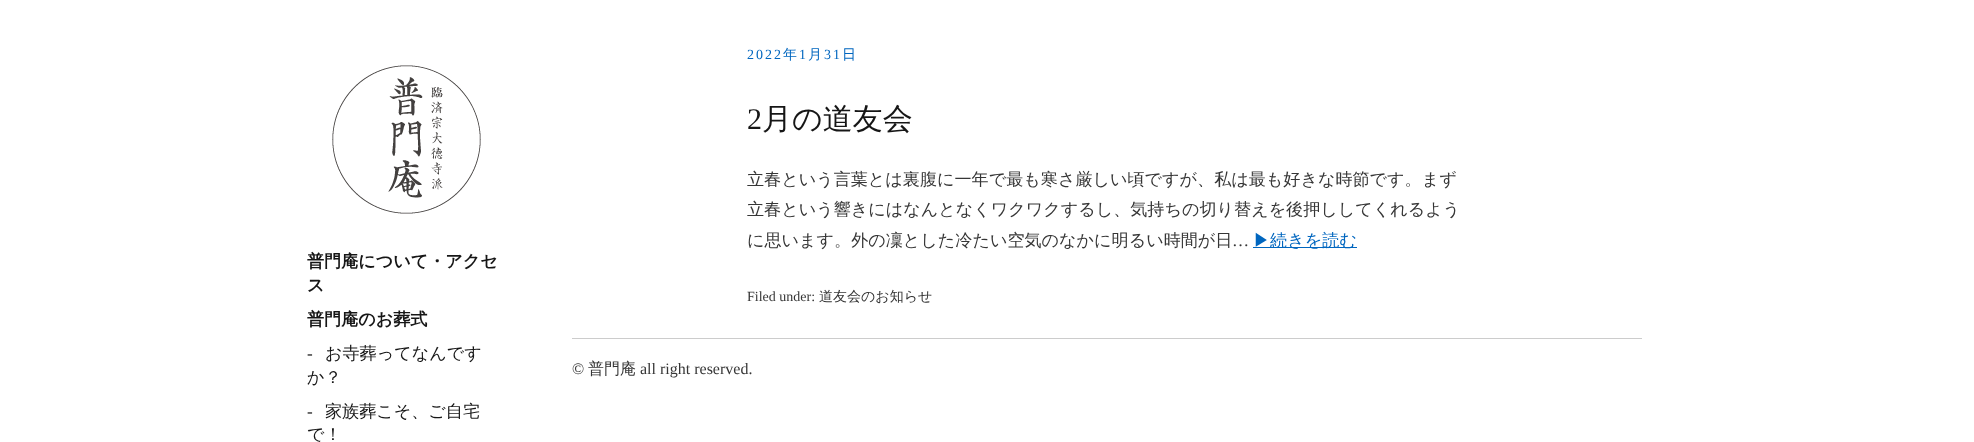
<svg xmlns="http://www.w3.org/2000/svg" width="1974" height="442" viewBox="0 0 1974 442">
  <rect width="100%" height="100%" fill="#ffffff"/>
  <image x="332" y="65" width="149" height="149" href="img1.png"/>
  <text x="307" y="267" font-family="WenQuanYi Zen Hei" font-size="17.1" font-weight="bold" fill="#161616">普門庵について・アクセ</text>
  <text x="307" y="291" font-family="WenQuanYi Zen Hei" font-size="17.1" font-weight="bold" fill="#161616">ス</text>
  <text x="307" y="325" font-family="WenQuanYi Zen Hei" font-size="17.1" font-weight="bold" fill="#161616">普門庵のお葬式</text>
  <text x="307" y="359" font-family="Liberation Serif" font-size="17.1" fill="#161616">-</text>
  <text x="325" y="359" font-family="WenQuanYi Zen Hei" font-size="17.1" font-weight="500" fill="#161616">お寺葬ってなんです</text>
  <text x="307" y="383" font-family="WenQuanYi Zen Hei" font-size="17.1" font-weight="500" fill="#161616">か？</text>
  <text x="307" y="417" font-family="Liberation Serif" font-size="17.1" fill="#161616">-</text>
  <text x="325" y="417" font-family="WenQuanYi Zen Hei" font-size="17.1" font-weight="500" fill="#161616">家族葬こそ、ご自宅</text>
  <text x="307" y="440" font-family="WenQuanYi Zen Hei" font-size="17.1" font-weight="500" fill="#161616">で！</text>
  <text x="747" y="59" font-family="Liberation Serif" font-size="14" letter-spacing="2" fill="#0066bf">2022</text>
  <text x="783" y="59" font-family="WenQuanYi Zen Hei" font-size="14" font-weight="500" letter-spacing="2" fill="#0066bf">年</text>
  <text x="799" y="59" font-family="Liberation Serif" font-size="14" letter-spacing="2" fill="#0066bf">1</text>
  <text x="808" y="59" font-family="WenQuanYi Zen Hei" font-size="14" font-weight="500" letter-spacing="2" fill="#0066bf">月</text>
  <text x="824" y="59" font-family="Liberation Serif" font-size="14" letter-spacing="2" fill="#0066bf">31</text>
  <text x="842" y="59" font-family="WenQuanYi Zen Hei" font-size="14" font-weight="500" letter-spacing="2" fill="#0066bf">日</text>
  <text x="747" y="129" font-family="Liberation Serif" font-size="30" fill="#161616">2</text>
  <text x="762" y="129" font-family="WenQuanYi Zen Hei" font-size="30" font-weight="500" fill="#161616">月の道友会</text>
  <text x="747" y="185" font-family="WenQuanYi Zen Hei" font-size="17.1" font-weight="500" fill="#363636">立春という言葉とは裏腹に一年で最も寒さ厳しい頃ですが、私は最も好きな時節です。まず</text>
  <text x="747" y="215" font-family="WenQuanYi Zen Hei" font-size="17.1" font-weight="500" fill="#363636">立春という響きにはなんとなくワクワクするし、気持ちの切り替えを後押ししてくれるよう</text>
  <text x="747" y="246" font-family="WenQuanYi Zen Hei" font-size="17.1" font-weight="500" fill="#363636">に思います。外の凜とした冷たい空気のなかに明るい時間が日</text>
  <text x="1232" y="246" font-family="Liberation Serif" font-size="17.1" fill="#363636">…</text>
  <rect x="1253" y="247" width="104" height="1" fill="#0066bf"/>
  <text x="1253" y="246" font-family="WenQuanYi Zen Hei" font-size="17.1" font-weight="500" fill="#0066bf">▶続きを読む</text>
  <text x="747" y="301" font-family="Liberation Serif" font-size="14" fill="#363636">Filed under:</text>
  <text x="819" y="301" font-family="WenQuanYi Zen Hei" font-size="14" font-weight="500" fill="#363636">道友会のお知らせ</text>
  <rect x="572" y="338" width="1070" height="1" fill="#cccccc"/>
  <text x="572" y="374" font-family="Liberation Serif" font-size="16" fill="#363636">©</text>
  <text x="588" y="374" font-family="WenQuanYi Zen Hei" font-size="16" font-weight="500" fill="#363636">普門庵</text>
  <text x="640" y="374" font-family="Liberation Serif" font-size="16" fill="#363636">all right reserved.</text>
</svg>
